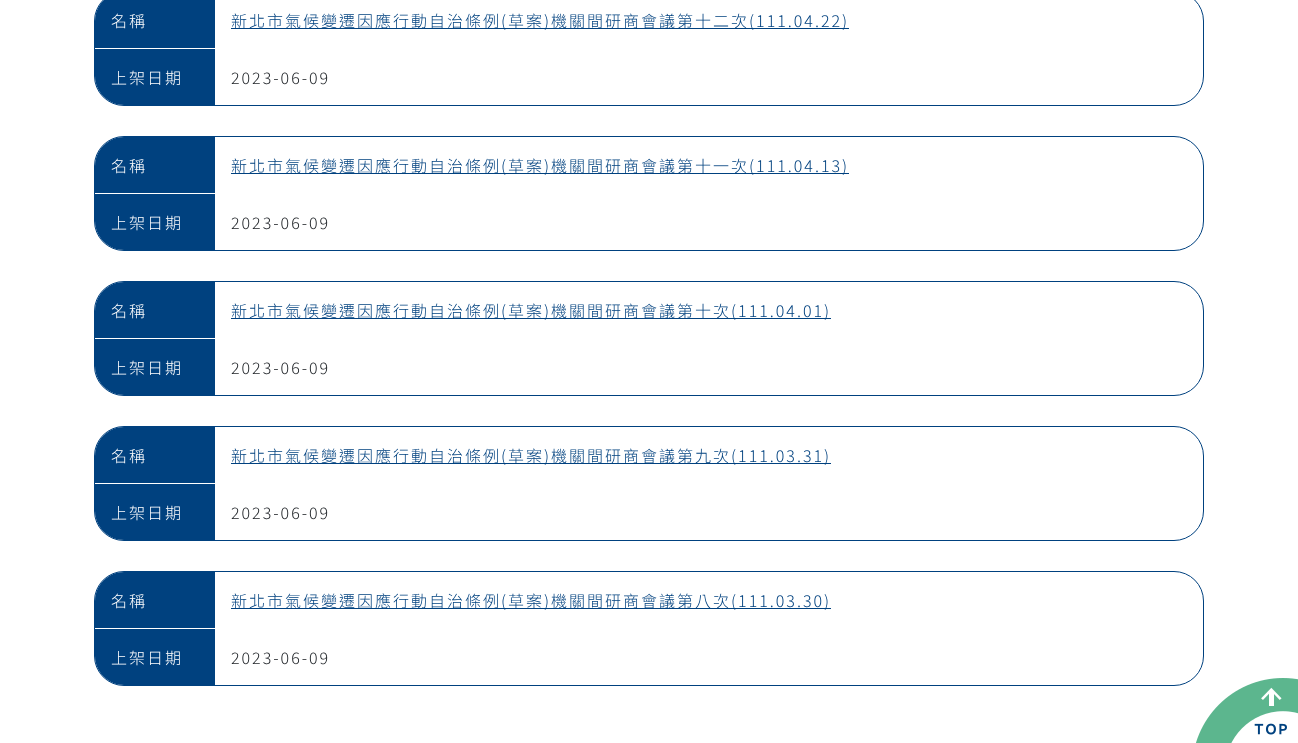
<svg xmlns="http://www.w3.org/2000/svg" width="1298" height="743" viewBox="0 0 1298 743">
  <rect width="100%" height="100%" fill="#ffffff"/>
  <rect x="94.5" y="-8.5" width="1109" height="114" rx="29.5" fill="none" stroke="#00417f"/>
  <path d="M124-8H215V48H95V21C95 5 108-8 124-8Z" fill="#00417f"/>
  <text x="111" y="27" font-family="Noto Sans TC" font-size="16" font-weight="300" letter-spacing="2" fill="#ffffff">名稱</text>
  <rect x="231" y="28" width="618" height="1" fill="#00417f"/>
  <text x="231" y="27" font-family="Noto Sans TC" font-size="16" font-weight="300" letter-spacing="2" fill="#00417f">新北市氣候變遷因應行動自治條例(草案)機關間研商會議第十二次(111.04.22)</text>
  <path d="M95 49H215V105H124C108 105 95 92 95 76Z" fill="#00417f"/>
  <text x="111" y="84" font-family="Noto Sans TC" font-size="16" font-weight="300" letter-spacing="2" fill="#ffffff">上架日期</text>
  <text x="231" y="84" font-family="Noto Sans TC" font-size="16" font-weight="300" letter-spacing="2" fill="#212529">2023-06-09</text>
  <rect x="94.5" y="136.5" width="1109" height="114" rx="29.5" fill="none" stroke="#00417f"/>
  <path d="M124 137H215V193H95V166C95 150 108 137 124 137Z" fill="#00417f"/>
  <text x="111" y="172" font-family="Noto Sans TC" font-size="16" font-weight="300" letter-spacing="2" fill="#ffffff">名稱</text>
  <rect x="231" y="173" width="618" height="1" fill="#00417f"/>
  <text x="231" y="172" font-family="Noto Sans TC" font-size="16" font-weight="300" letter-spacing="2" fill="#00417f">新北市氣候變遷因應行動自治條例(草案)機關間研商會議第十一次(111.04.13)</text>
  <path d="M95 194H215V250H124C108 250 95 237 95 221Z" fill="#00417f"/>
  <text x="111" y="229" font-family="Noto Sans TC" font-size="16" font-weight="300" letter-spacing="2" fill="#ffffff">上架日期</text>
  <text x="231" y="229" font-family="Noto Sans TC" font-size="16" font-weight="300" letter-spacing="2" fill="#212529">2023-06-09</text>
  <rect x="94.5" y="281.5" width="1109" height="114" rx="29.5" fill="none" stroke="#00417f"/>
  <path d="M124 282H215V338H95V311C95 295 108 282 124 282Z" fill="#00417f"/>
  <text x="111" y="317" font-family="Noto Sans TC" font-size="16" font-weight="300" letter-spacing="2" fill="#ffffff">名稱</text>
  <rect x="231" y="318" width="600" height="1" fill="#00417f"/>
  <text x="231" y="317" font-family="Noto Sans TC" font-size="16" font-weight="300" letter-spacing="2" fill="#00417f">新北市氣候變遷因應行動自治條例(草案)機關間研商會議第十次(111.04.01)</text>
  <path d="M95 339H215V395H124C108 395 95 382 95 366Z" fill="#00417f"/>
  <text x="111" y="374" font-family="Noto Sans TC" font-size="16" font-weight="300" letter-spacing="2" fill="#ffffff">上架日期</text>
  <text x="231" y="374" font-family="Noto Sans TC" font-size="16" font-weight="300" letter-spacing="2" fill="#212529">2023-06-09</text>
  <rect x="94.5" y="426.5" width="1109" height="114" rx="29.5" fill="none" stroke="#00417f"/>
  <path d="M124 427H215V483H95V456C95 440 108 427 124 427Z" fill="#00417f"/>
  <text x="111" y="462" font-family="Noto Sans TC" font-size="16" font-weight="300" letter-spacing="2" fill="#ffffff">名稱</text>
  <rect x="231" y="463" width="600" height="1" fill="#00417f"/>
  <text x="231" y="462" font-family="Noto Sans TC" font-size="16" font-weight="300" letter-spacing="2" fill="#00417f">新北市氣候變遷因應行動自治條例(草案)機關間研商會議第九次(111.03.31)</text>
  <path d="M95 484H215V540H124C108 540 95 527 95 511Z" fill="#00417f"/>
  <text x="111" y="519" font-family="Noto Sans TC" font-size="16" font-weight="300" letter-spacing="2" fill="#ffffff">上架日期</text>
  <text x="231" y="519" font-family="Noto Sans TC" font-size="16" font-weight="300" letter-spacing="2" fill="#212529">2023-06-09</text>
  <rect x="94.5" y="571.5" width="1109" height="114" rx="29.5" fill="none" stroke="#00417f"/>
  <path d="M124 572H215V628H95V601C95 585 108 572 124 572Z" fill="#00417f"/>
  <text x="111" y="607" font-family="Noto Sans TC" font-size="16" font-weight="300" letter-spacing="2" fill="#ffffff">名稱</text>
  <rect x="231" y="608" width="600" height="1" fill="#00417f"/>
  <text x="231" y="607" font-family="Noto Sans TC" font-size="16" font-weight="300" letter-spacing="2" fill="#00417f">新北市氣候變遷因應行動自治條例(草案)機關間研商會議第八次(111.03.30)</text>
  <path d="M95 629H215V685H124C108 685 95 672 95 656Z" fill="#00417f"/>
  <text x="111" y="664" font-family="Noto Sans TC" font-size="16" font-weight="300" letter-spacing="2" fill="#ffffff">上架日期</text>
  <text x="231" y="664" font-family="Noto Sans TC" font-size="16" font-weight="300" letter-spacing="2" fill="#212529">2023-06-09</text>
  <image x="1196" y="678" width="102" height="65" href="img1.png"/>
</svg>
